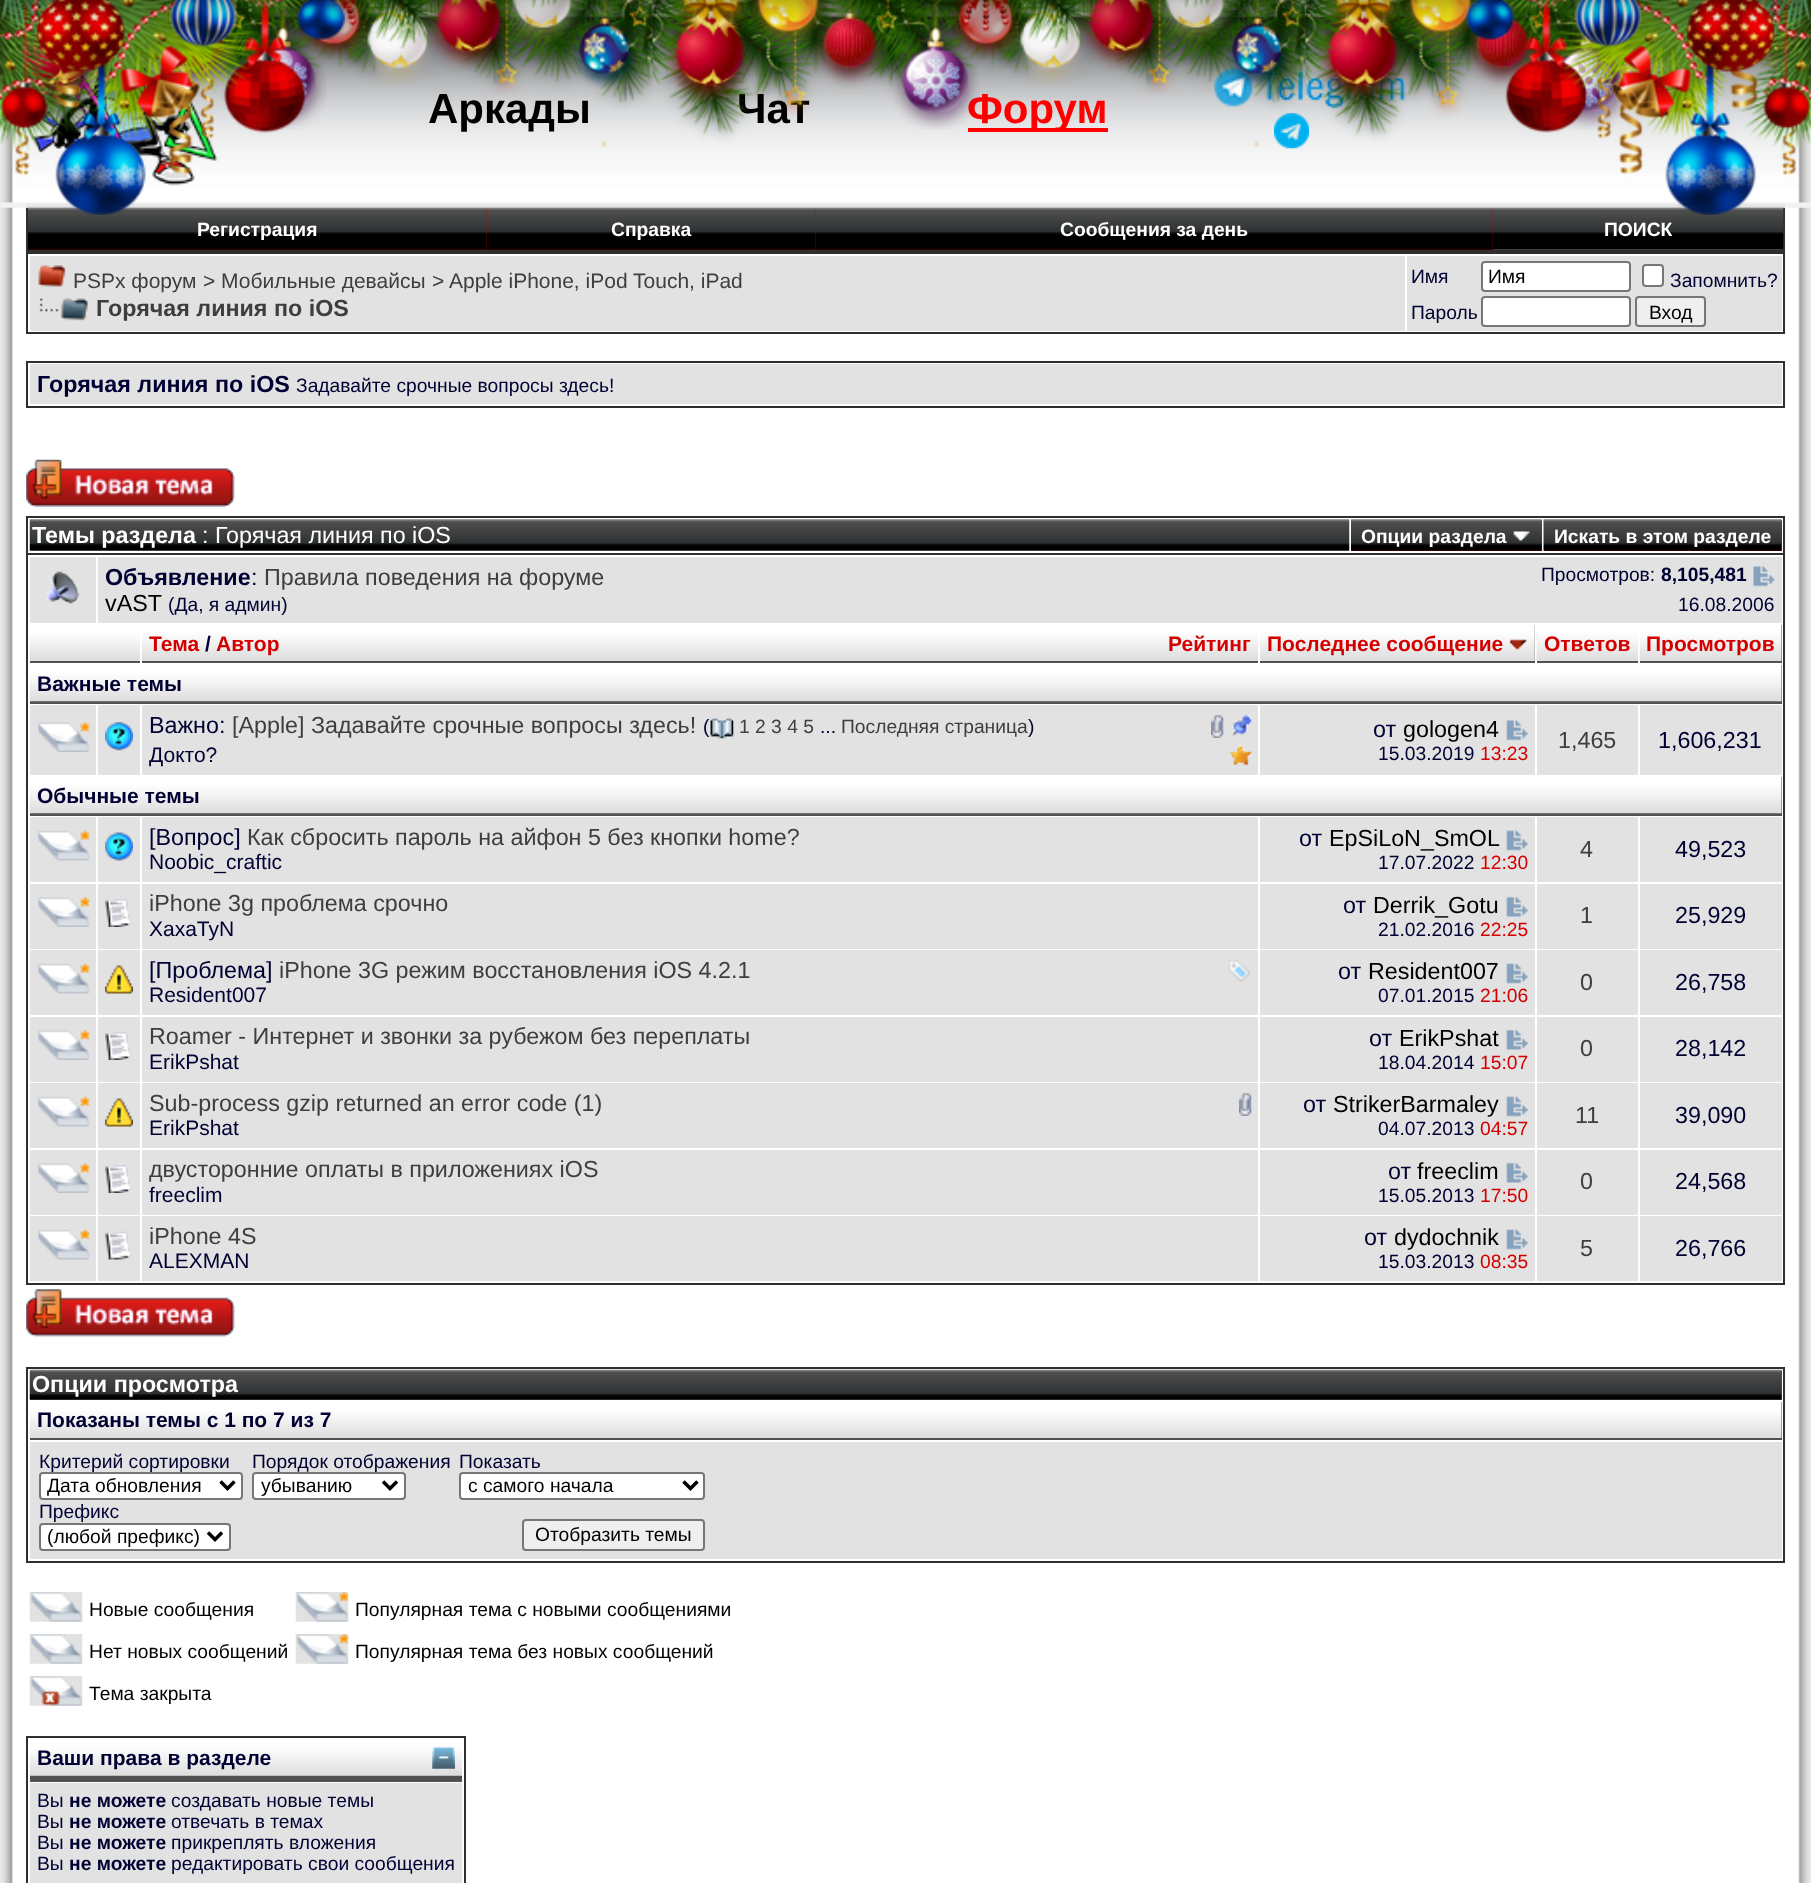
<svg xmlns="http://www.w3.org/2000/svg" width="1811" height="1883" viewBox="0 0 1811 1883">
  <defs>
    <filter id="blur1" x="-50%" y="-200%" width="200%" height="500%"><feGaussianBlur stdDeviation="26"/></filter>
  </defs>
  <rect width="100%" height="100%" fill="#f2f2f2"/>
  <image x="26" y="11" width="1759" height="197" href="img47.png"/>
  <image x="0" y="18" width="27" height="185" href="img46.png"/>
  <image x="31" y="46" width="187" height="150" href="img48.png"/>
  <text x="428" y="123" font-family="Liberation Sans" font-size="42" font-weight="bold" fill="#000000">Аркады</text>
  <text x="737" y="123" font-family="Liberation Sans" font-size="42" font-weight="bold" fill="#000000">Чат</text>
  <rect x="968" y="128" width="140" height="4" fill="#ff0000"/>
  <text x="967" y="123" font-family="Liberation Sans" font-size="42" font-weight="bold" fill="#ff0000">Форум</text>
  <image x="1214" y="67" width="192" height="41" href="img49.png"/>
  <image x="1274" y="113" width="35" height="36" href="img50.png"/>
  <image x="1785" y="21" width="26" height="182" href="img51.png"/>
  <image x="0" y="0" width="1811" height="147" href="img1.png"/>
  <image x="12" y="0" width="88" height="104" href="img3.png"/>
  <image x="0" y="0" width="44" height="81" href="img2.png"/>
  <image x="43" y="0" width="7" height="4" href="img4.png"/>
  <image x="118" y="0" width="54" height="43" href="img5.png"/>
  <image x="239" y="0" width="88" height="130" href="img6.png"/>
  <image x="297" y="0" width="72" height="59" href="img7.png"/>
  <image x="357" y="0" width="78" height="87" href="img9.png"/>
  <image x="320" y="0" width="39" height="15" href="img8.png"/>
  <image x="426" y="0" width="84" height="72" href="img11.png"/>
  <image x="358" y="0" width="89" height="49" href="img10.png"/>
  <image x="503" y="0" width="80" height="47" href="img12.png"/>
  <image x="572" y="0" width="63" height="89" href="img15.png"/>
  <image x="530" y="0" width="74" height="10" href="img13.png"/>
  <image x="161" y="22" width="71" height="67" href="img14.png"/>
  <image x="642" y="0" width="11" height="82" href="img16.png"/>
  <image x="665" y="0" width="89" height="104" href="img18.png"/>
  <image x="652" y="0" width="45" height="85" href="img17.png"/>
  <image x="749" y="0" width="78" height="43" href="img20.png"/>
  <image x="696" y="0" width="70" height="8" href="img19.png"/>
  <image x="814" y="0" width="71" height="89" href="img21.png"/>
  <image x="891" y="0" width="89" height="130" href="img22.png"/>
  <image x="950" y="0" width="72" height="59" href="img23.png"/>
  <image x="1010" y="0" width="77" height="87" href="img25.png"/>
  <image x="972" y="0" width="40" height="15" href="img24.png"/>
  <image x="1079" y="0" width="84" height="72" href="img27.png"/>
  <image x="1011" y="0" width="88" height="49" href="img26.png"/>
  <image x="1155" y="0" width="81" height="47" href="img28.png"/>
  <image x="1225" y="0" width="63" height="89" href="img30.png"/>
  <image x="1183" y="0" width="74" height="10" href="img29.png"/>
  <image x="1295" y="0" width="11" height="82" href="img31.png"/>
  <image x="1317" y="0" width="90" height="104" href="img33.png"/>
  <image x="1305" y="0" width="45" height="85" href="img32.png"/>
  <image x="1401" y="0" width="79" height="43" href="img35.png"/>
  <image x="1349" y="0" width="69" height="8" href="img34.png"/>
  <image x="1467" y="0" width="70" height="89" href="img36.png"/>
  <image x="1546" y="0" width="85" height="130" href="img37.png"/>
  <image x="1617" y="0" width="56" height="59" href="img38.png"/>
  <image x="1657" y="0" width="7" height="11" href="img39.png"/>
  <image x="1667" y="0" width="26" height="13" href="img40.png"/>
  <image x="1747" y="0" width="64" height="72" href="img41.png"/>
  <image x="1809" y="0" width="2" height="20" href="img42.png"/>
  <image x="1663" y="40" width="76" height="47" href="img43.png"/>
  <image x="0" y="207" width="26" height="1676" href="img52.png"/>
  <rect x="26" y="249" width="1759" height="1634" fill="#ffffff"/>
  <rect x="1783" y="208" width="2" height="44" fill="#2f2f2f"/>
  <rect x="26" y="250" width="1759" height="2" fill="#2f2f2f"/>
  <rect x="26" y="208" width="2" height="44" fill="#2f2f2f"/>
  <rect x="28" y="208" width="1465" height="42" fill="#d40000"/>
  <image x="28" y="207" width="459" height="43" href="img53.png"/>
  <image x="0" y="0" width="345" height="215" href="img44.png"/>
  <image x="486" y="207" width="330" height="43" href="img54.png"/>
  <image x="815" y="207" width="678" height="43" href="img55.png"/>
  <image x="1492" y="207" width="292" height="43" href="img56.png"/>
  <image x="1785" y="207" width="26" height="1676" href="img99.png"/>
  <image x="1466" y="0" width="345" height="215" href="img45.png"/>
  <rect x="0" y="-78" width="1811" height="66" fill="#000000" fill-opacity="0.75" filter="url(#blur1)"/>
  <text x="197" y="236" font-family="Liberation Sans" font-size="19.25" font-weight="bold" fill="#ffffff">Регистрация</text>
  <text x="611" y="236" font-family="Liberation Sans" font-size="19.25" font-weight="bold" fill="#ffffff">Справка</text>
  <text x="1060" y="236" font-family="Liberation Sans" font-size="19.25" font-weight="bold" fill="#ffffff">Сообщения за день</text>
  <text x="1604" y="236" font-family="Liberation Sans" font-size="19.25" font-weight="bold" fill="#ffffff">ПОИСК</text>
  <rect x="27" y="253" width="1757" height="80" fill="none" stroke="#2f2f2f" stroke-width="2"/>
  <rect x="30" y="256" width="1375" height="75" fill="#e2e2e2"/>
  <image x="38" y="265" width="28" height="22" href="img57.png"/>
  <text x="73" y="288" font-family="Liberation Sans" font-size="21" fill="#3e3e3e">PSPx форум</text>
  <text x="203" y="288" font-family="Liberation Sans" font-size="21" fill="#3e3e3e">&gt; Мобильные девайсы</text>
  <text x="432" y="288" font-family="Liberation Sans" font-size="21" fill="#3e3e3e">&gt; Apple iPhone, iPod Touch, iPad</text>
  <image x="39" y="298" width="49" height="23" href="img58.png"/>
  <text x="96" y="316" font-family="Liberation Sans" font-size="23.3" font-weight="bold" fill="#3e3e3e">Горячая линия по iOS</text>
  <rect x="1407" y="256" width="375" height="75" fill="#e2e2e2"/>
  <text x="1411" y="283" font-family="Liberation Sans" font-size="19.25" fill="#000033">Имя</text>
  <rect x="1482" y="262" width="148" height="29" rx="3" fill="#ffffff" stroke="#767676" stroke-width="2"/>
  <text x="1488" y="283" font-family="Liberation Sans" font-size="19.25" fill="#000000">Имя</text>
  <rect x="1643" y="265" width="20" height="21" rx="3" fill="#ffffff" stroke="#767676" stroke-width="2"/>
  <text x="1670" y="287" font-family="Liberation Sans" font-size="19.25" fill="#000033">Запомнить?</text>
  <text x="1411" y="319" font-family="Liberation Sans" font-size="19.25" fill="#000033">Пароль</text>
  <rect x="1482" y="297" width="148" height="29" rx="3" fill="#ffffff" stroke="#767676" stroke-width="2"/>
  <rect x="1636" y="297" width="69" height="29" rx="3" fill="#efefef" stroke="#767676" stroke-width="2"/>
  <text x="1649" y="319" font-family="Liberation Sans" font-size="19.25" fill="#000000">Вход</text>
  <rect x="27" y="362" width="1757" height="45" fill="none" stroke="#2f2f2f" stroke-width="2"/>
  <rect x="30" y="364" width="1752" height="40" fill="#e2e2e2"/>
  <text x="37" y="392" font-family="Liberation Sans" font-size="23.3" font-weight="bold" fill="#000033">Горячая линия по iOS</text>
  <text x="296" y="392" font-family="Liberation Sans" font-size="19.25" fill="#000033">Задавайте срочные вопросы здесь!</text>
  <image x="26" y="459" width="209" height="48" href="img59.png"/>
  <rect x="26" y="516" width="1759" height="2" fill="#2f2f2f"/>
  <rect x="1783" y="516" width="2" height="37" fill="#2f2f2f"/>
  <rect x="26" y="516" width="2" height="37" fill="#2f2f2f"/>
  <image x="29" y="519" width="1321" height="32" href="img60.png"/>
  <text x="32" y="543" font-family="Liberation Sans" font-size="23.3" font-weight="bold" fill="#ffffff">Темы раздела</text>
  <text x="202" y="543" font-family="Liberation Sans" font-size="23.3" fill="#ffffff">: Горячая линия по iOS</text>
  <rect x="1351" y="520" width="191" height="31" fill="#d40000"/>
  <image x="1351" y="519" width="191" height="32" href="img61.png"/>
  <text x="1361" y="543" font-family="Liberation Sans" font-size="19.25" font-weight="bold" fill="#ffffff">Опции раздела</text>
  <image x="1513" y="531" width="17" height="10" href="img62.png"/>
  <rect x="1544" y="520" width="238" height="31" fill="#d40000"/>
  <image x="1543" y="519" width="239" height="32" href="img63.png"/>
  <text x="1554" y="543" font-family="Liberation Sans" font-size="19.25" font-weight="bold" fill="#ffffff">Искать в этом разделе</text>
  <rect x="27" y="554" width="1757" height="730" fill="none" stroke="#2f2f2f" stroke-width="2"/>
  <rect x="30" y="557" width="66" height="66" fill="#e2e2e2"/>
  <image x="47" y="571" width="32" height="33" href="img64.png"/>
  <rect x="98" y="557" width="1684" height="66" fill="#e2e2e2"/>
  <text x="105" y="585" font-family="Liberation Sans" font-size="23.3" font-weight="bold" fill="#000033">Объявление</text>
  <text x="251" y="585" font-family="Liberation Sans" font-size="23.3" fill="#000033">:</text>
  <text x="264" y="585" font-family="Liberation Sans" font-size="23.3" fill="#3e3e3e">Правила поведения на форуме</text>
  <text x="1541" y="581" font-family="Liberation Sans" font-size="19.25" fill="#000033">Просмотров:</text>
  <text x="1661" y="581" font-family="Liberation Sans" font-size="19.25" font-weight="bold" fill="#000033">8,105,481</text>
  <image x="1753" y="566" width="22" height="21" href="img65.png"/>
  <text x="105" y="611" font-family="Liberation Sans" font-size="23.3" fill="#000000">vAST</text>
  <text x="168" y="611" font-family="Liberation Sans" font-size="19.25" fill="#000033">(Да, я админ)</text>
  <text x="1678" y="611" font-family="Liberation Sans" font-size="19.25" fill="#000033">16.08.2006</text>
  <rect x="30" y="661" width="110" height="2" fill="#515151"/>
  <image x="29" y="625" width="111" height="36" href="img66.png"/>
  <rect x="142" y="661" width="1116" height="2" fill="#515151"/>
  <image x="141" y="625" width="1118" height="36" href="img67.png"/>
  <text x="149" y="651" font-family="Liberation Sans" font-size="21" font-weight="bold" fill="#d40000">Тема</text>
  <text x="205" y="651" font-family="Liberation Sans" font-size="21" font-weight="bold" fill="#000033">/</text>
  <text x="216" y="651" font-family="Liberation Sans" font-size="21" font-weight="bold" fill="#d40000">Автор</text>
  <text x="1168" y="651" font-family="Liberation Sans" font-size="21" font-weight="bold" fill="#d40000">Рейтинг</text>
  <rect x="1260" y="625" width="275" height="38" fill="#515151"/>
  <image x="1260" y="625" width="275" height="36" href="img68.png"/>
  <text x="1267" y="651" font-family="Liberation Sans" font-size="21" font-weight="bold" fill="#d40000">Последнее сообщение</text>
  <image x="1509" y="639" width="18" height="11" href="img69.png"/>
  <rect x="1537" y="661" width="101" height="2" fill="#515151"/>
  <image x="1536" y="625" width="102" height="36" href="img70.png"/>
  <text x="1544" y="651" font-family="Liberation Sans" font-size="21" font-weight="bold" fill="#d40000">Ответов</text>
  <rect x="1640" y="625" width="142" height="38" fill="#515151"/>
  <image x="1639" y="625" width="143" height="36" href="img71.png"/>
  <text x="1646" y="651" font-family="Liberation Sans" font-size="21" font-weight="bold" fill="#d40000">Просмотров</text>
  <rect x="30" y="665" width="1752" height="39" fill="#515151"/>
  <image x="29" y="665" width="1753" height="37" href="img72.png"/>
  <text x="37" y="691" font-family="Liberation Sans" font-size="21" font-weight="bold" fill="#000033">Важные темы</text>
  <rect x="30" y="705" width="66" height="70" fill="#e2e2e2"/>
  <image x="37" y="722" width="53" height="30" href="img73.png"/>
  <rect x="98" y="705" width="42" height="70" fill="#e2e2e2"/>
  <image x="105" y="722" width="28" height="29" href="img74.png"/>
  <rect x="142" y="705" width="1116" height="70" fill="#e2e2e2"/>
  <text x="149" y="733" font-family="Liberation Sans" font-size="23.3" fill="#000033">Важно:</text>
  <text x="232" y="733" font-family="Liberation Sans" font-size="23.3" fill="#3e3e3e">[Apple] Задавайте срочные вопросы здесь!</text>
  <text x="703" y="733" font-family="Liberation Sans" font-size="19.25" fill="#000033">(</text>
  <image x="710" y="718" width="24" height="21" href="img75.png"/>
  <text x="739" y="733" font-family="Liberation Sans" font-size="19.25" fill="#3e3e3e">1 2 3 4 5</text>
  <text x="820" y="733" font-family="Liberation Sans" font-size="19.25" fill="#000033">...</text>
  <text x="841" y="733" font-family="Liberation Sans" font-size="19.25" fill="#3e3e3e">Последняя страница</text>
  <text x="1028" y="733" font-family="Liberation Sans" font-size="19.25" fill="#000033">)</text>
  <image x="1211" y="715" width="13" height="23" href="img76.png"/>
  <image x="1231" y="715" width="21" height="22" href="img77.png"/>
  <text x="149" y="762" font-family="Liberation Sans" font-size="21" fill="#000033">Докто?</text>
  <image x="1229" y="745" width="23" height="21" href="img78.png"/>
  <rect x="1260" y="705" width="275" height="70" fill="#e2e2e2"/>
  <text x="1373" y="737" font-family="Liberation Sans" font-size="23.3" fill="#000033">от</text>
  <text x="1403" y="737" font-family="Liberation Sans" font-size="23.3" fill="#000000">gologen4</text>
  <image x="1506" y="720" width="22" height="21" href="img79.png"/>
  <text x="1378" y="760" font-family="Liberation Sans" font-size="19.25" fill="#000033">15.03.2019</text>
  <text x="1480" y="760" font-family="Liberation Sans" font-size="19.25" fill="#d40000">13:23</text>
  <rect x="1537" y="705" width="101" height="70" fill="#e2e2e2"/>
  <text x="1558" y="748" font-family="Liberation Sans" font-size="23.3" fill="#3e3e3e">1,465</text>
  <rect x="1640" y="705" width="142" height="70" fill="#e2e2e2"/>
  <text x="1658" y="748" font-family="Liberation Sans" font-size="23.3" fill="#000033">1,606,231</text>
  <rect x="30" y="777" width="1752" height="39" fill="#515151"/>
  <image x="29" y="777" width="1753" height="37" href="img80.png"/>
  <text x="37" y="803" font-family="Liberation Sans" font-size="21" font-weight="bold" fill="#000033">Обычные темы</text>
  <rect x="30" y="817" width="66" height="65" fill="#e2e2e2"/>
  <image x="37" y="830" width="53" height="31" href="img81.png"/>
  <rect x="98" y="817" width="42" height="65" fill="#e2e2e2"/>
  <image x="105" y="832" width="28" height="29" href="img82.png"/>
  <rect x="142" y="817" width="1116" height="65" fill="#e2e2e2"/>
  <text x="149" y="845" font-family="Liberation Sans" font-size="23.3" fill="#000033">[Вопрос]</text>
  <text x="247" y="845" font-family="Liberation Sans" font-size="23.3" fill="#3e3e3e">Как сбросить пароль на айфон 5 без кнопки home?</text>
  <text x="149" y="869" font-family="Liberation Sans" font-size="21" fill="#000033">Noobic_craftic</text>
  <rect x="1260" y="817" width="275" height="65" fill="#e2e2e2"/>
  <text x="1299" y="846" font-family="Liberation Sans" font-size="23.3" fill="#000033">от</text>
  <text x="1329" y="846" font-family="Liberation Sans" font-size="23.3" fill="#000000">EpSiLoN_SmOL</text>
  <image x="1506" y="830" width="22" height="21" href="img83.png"/>
  <text x="1378" y="869" font-family="Liberation Sans" font-size="19.25" fill="#000033">17.07.2022</text>
  <text x="1480" y="869" font-family="Liberation Sans" font-size="19.25" fill="#d40000">12:30</text>
  <rect x="1537" y="817" width="101" height="65" fill="#e2e2e2"/>
  <text x="1580" y="857" font-family="Liberation Sans" font-size="23.3" fill="#3e3e3e">4</text>
  <rect x="1640" y="817" width="142" height="65" fill="#e2e2e2"/>
  <text x="1675" y="857" font-family="Liberation Sans" font-size="23.3" fill="#000033">49,523</text>
  <rect x="30" y="884" width="66" height="65" fill="#e2e2e2"/>
  <image x="37" y="897" width="53" height="30" href="img73.png"/>
  <rect x="98" y="884" width="42" height="65" fill="#e2e2e2"/>
  <image x="105" y="899" width="27" height="28" href="img84.png"/>
  <rect x="142" y="884" width="1116" height="65" fill="#e2e2e2"/>
  <text x="149" y="911" font-family="Liberation Sans" font-size="23.3" fill="#3e3e3e">iPhone 3g проблема срочно</text>
  <text x="149" y="936" font-family="Liberation Sans" font-size="21" fill="#000033">XaxaTyN</text>
  <rect x="1260" y="884" width="275" height="65" fill="#e2e2e2"/>
  <text x="1343" y="913" font-family="Liberation Sans" font-size="23.3" fill="#000033">от</text>
  <text x="1373" y="913" font-family="Liberation Sans" font-size="23.3" fill="#000000">Derrik_Gotu</text>
  <image x="1506" y="896" width="22" height="21" href="img85.png"/>
  <text x="1378" y="936" font-family="Liberation Sans" font-size="19.25" fill="#000033">21.02.2016</text>
  <text x="1480" y="936" font-family="Liberation Sans" font-size="19.25" fill="#d40000">22:25</text>
  <rect x="1537" y="884" width="101" height="65" fill="#e2e2e2"/>
  <text x="1580" y="923" font-family="Liberation Sans" font-size="23.3" fill="#3e3e3e">1</text>
  <rect x="1640" y="884" width="142" height="65" fill="#e2e2e2"/>
  <text x="1675" y="923" font-family="Liberation Sans" font-size="23.3" fill="#000033">25,929</text>
  <rect x="30" y="950" width="66" height="65" fill="#e2e2e2"/>
  <image x="37" y="963" width="53" height="31" href="img81.png"/>
  <rect x="98" y="950" width="42" height="65" fill="#e2e2e2"/>
  <image x="105" y="965" width="28" height="29" href="img86.png"/>
  <rect x="142" y="950" width="1116" height="65" fill="#e2e2e2"/>
  <text x="149" y="978" font-family="Liberation Sans" font-size="23.3" fill="#000033">[Проблема]</text>
  <text x="279" y="978" font-family="Liberation Sans" font-size="23.3" fill="#3e3e3e">iPhone 3G режим восстановления iOS 4.2.1</text>
  <image x="1228" y="960" width="22" height="22" href="img87.png"/>
  <text x="149" y="1002" font-family="Liberation Sans" font-size="21" fill="#000033">Resident007</text>
  <rect x="1260" y="950" width="275" height="65" fill="#e2e2e2"/>
  <text x="1338" y="979" font-family="Liberation Sans" font-size="23.3" fill="#000033">от</text>
  <text x="1368" y="979" font-family="Liberation Sans" font-size="23.3" fill="#000000">Resident007</text>
  <image x="1506" y="963" width="22" height="21" href="img83.png"/>
  <text x="1378" y="1002" font-family="Liberation Sans" font-size="19.25" fill="#000033">07.01.2015</text>
  <text x="1480" y="1002" font-family="Liberation Sans" font-size="19.25" fill="#d40000">21:06</text>
  <rect x="1537" y="950" width="101" height="65" fill="#e2e2e2"/>
  <text x="1580" y="990" font-family="Liberation Sans" font-size="23.3" fill="#3e3e3e">0</text>
  <rect x="1640" y="950" width="142" height="65" fill="#e2e2e2"/>
  <text x="1675" y="990" font-family="Liberation Sans" font-size="23.3" fill="#000033">26,758</text>
  <rect x="30" y="1017" width="66" height="65" fill="#e2e2e2"/>
  <image x="37" y="1030" width="53" height="30" href="img73.png"/>
  <rect x="98" y="1017" width="42" height="65" fill="#e2e2e2"/>
  <image x="105" y="1032" width="27" height="28" href="img84.png"/>
  <rect x="142" y="1017" width="1116" height="65" fill="#e2e2e2"/>
  <text x="149" y="1044" font-family="Liberation Sans" font-size="23.3" fill="#3e3e3e">Roamer - Интернет и звонки за рубежом без переплаты</text>
  <text x="149" y="1069" font-family="Liberation Sans" font-size="21" fill="#000033">ErikPshat</text>
  <rect x="1260" y="1017" width="275" height="65" fill="#e2e2e2"/>
  <text x="1369" y="1046" font-family="Liberation Sans" font-size="23.3" fill="#000033">от</text>
  <text x="1399" y="1046" font-family="Liberation Sans" font-size="23.3" fill="#000000">ErikPshat</text>
  <image x="1506" y="1029" width="22" height="21" href="img85.png"/>
  <text x="1378" y="1069" font-family="Liberation Sans" font-size="19.25" fill="#000033">18.04.2014</text>
  <text x="1480" y="1069" font-family="Liberation Sans" font-size="19.25" fill="#d40000">15:07</text>
  <rect x="1537" y="1017" width="101" height="65" fill="#e2e2e2"/>
  <text x="1580" y="1056" font-family="Liberation Sans" font-size="23.3" fill="#3e3e3e">0</text>
  <rect x="1640" y="1017" width="142" height="65" fill="#e2e2e2"/>
  <text x="1675" y="1056" font-family="Liberation Sans" font-size="23.3" fill="#000033">28,142</text>
  <rect x="30" y="1083" width="66" height="65" fill="#e2e2e2"/>
  <image x="37" y="1096" width="53" height="31" href="img81.png"/>
  <rect x="98" y="1083" width="42" height="65" fill="#e2e2e2"/>
  <image x="105" y="1098" width="28" height="29" href="img86.png"/>
  <rect x="142" y="1083" width="1116" height="65" fill="#e2e2e2"/>
  <text x="149" y="1111" font-family="Liberation Sans" font-size="23.3" fill="#3e3e3e">Sub-process gzip returned an error code (1)</text>
  <image x="1239" y="1093" width="13" height="23" href="img76.png"/>
  <text x="149" y="1135" font-family="Liberation Sans" font-size="21" fill="#000033">ErikPshat</text>
  <rect x="1260" y="1083" width="275" height="65" fill="#e2e2e2"/>
  <text x="1303" y="1112" font-family="Liberation Sans" font-size="23.3" fill="#000033">от</text>
  <text x="1333" y="1112" font-family="Liberation Sans" font-size="23.3" fill="#000000">StrikerBarmaley</text>
  <image x="1506" y="1096" width="22" height="21" href="img83.png"/>
  <text x="1378" y="1135" font-family="Liberation Sans" font-size="19.25" fill="#000033">04.07.2013</text>
  <text x="1480" y="1135" font-family="Liberation Sans" font-size="19.25" fill="#d40000">04:57</text>
  <rect x="1537" y="1083" width="101" height="65" fill="#e2e2e2"/>
  <text x="1575" y="1123" font-family="Liberation Sans" font-size="23.3" fill="#3e3e3e">11</text>
  <rect x="1640" y="1083" width="142" height="65" fill="#e2e2e2"/>
  <text x="1675" y="1123" font-family="Liberation Sans" font-size="23.3" fill="#000033">39,090</text>
  <rect x="30" y="1150" width="66" height="65" fill="#e2e2e2"/>
  <image x="37" y="1163" width="53" height="30" href="img73.png"/>
  <rect x="98" y="1150" width="42" height="65" fill="#e2e2e2"/>
  <image x="105" y="1165" width="27" height="28" href="img84.png"/>
  <rect x="142" y="1150" width="1116" height="65" fill="#e2e2e2"/>
  <text x="149" y="1177" font-family="Liberation Sans" font-size="23.3" fill="#3e3e3e">двусторонние оплаты в приложениях iOS</text>
  <text x="149" y="1202" font-family="Liberation Sans" font-size="21" fill="#000033">freeclim</text>
  <rect x="1260" y="1150" width="275" height="65" fill="#e2e2e2"/>
  <text x="1388" y="1179" font-family="Liberation Sans" font-size="23.3" fill="#000033">от</text>
  <text x="1417" y="1179" font-family="Liberation Sans" font-size="23.3" fill="#000000">freeclim</text>
  <image x="1506" y="1162" width="22" height="21" href="img85.png"/>
  <text x="1378" y="1202" font-family="Liberation Sans" font-size="19.25" fill="#000033">15.05.2013</text>
  <text x="1480" y="1202" font-family="Liberation Sans" font-size="19.25" fill="#d40000">17:50</text>
  <rect x="1537" y="1150" width="101" height="65" fill="#e2e2e2"/>
  <text x="1580" y="1189" font-family="Liberation Sans" font-size="23.3" fill="#3e3e3e">0</text>
  <rect x="1640" y="1150" width="142" height="65" fill="#e2e2e2"/>
  <text x="1675" y="1189" font-family="Liberation Sans" font-size="23.3" fill="#000033">24,568</text>
  <rect x="30" y="1216" width="66" height="65" fill="#e2e2e2"/>
  <image x="37" y="1229" width="53" height="31" href="img81.png"/>
  <rect x="98" y="1216" width="42" height="65" fill="#e2e2e2"/>
  <image x="105" y="1231" width="27" height="29" href="img88.png"/>
  <rect x="142" y="1216" width="1116" height="65" fill="#e2e2e2"/>
  <text x="149" y="1244" font-family="Liberation Sans" font-size="23.3" fill="#3e3e3e">iPhone 4S</text>
  <text x="149" y="1268" font-family="Liberation Sans" font-size="21" fill="#000033">ALEXMAN</text>
  <rect x="1260" y="1216" width="275" height="65" fill="#e2e2e2"/>
  <text x="1364" y="1245" font-family="Liberation Sans" font-size="23.3" fill="#000033">от</text>
  <text x="1394" y="1245" font-family="Liberation Sans" font-size="23.3" fill="#000000">dydochnik</text>
  <image x="1506" y="1229" width="22" height="21" href="img83.png"/>
  <text x="1378" y="1268" font-family="Liberation Sans" font-size="19.25" fill="#000033">15.03.2013</text>
  <text x="1480" y="1268" font-family="Liberation Sans" font-size="19.25" fill="#d40000">08:35</text>
  <rect x="1537" y="1216" width="101" height="65" fill="#e2e2e2"/>
  <text x="1580" y="1256" font-family="Liberation Sans" font-size="23.3" fill="#3e3e3e">5</text>
  <rect x="1640" y="1216" width="142" height="65" fill="#e2e2e2"/>
  <text x="1675" y="1256" font-family="Liberation Sans" font-size="23.3" fill="#000033">26,766</text>
  <image x="26" y="1289" width="209" height="48" href="img89.png"/>
  <rect x="27" y="1368" width="1757" height="194" fill="none" stroke="#2f2f2f" stroke-width="2"/>
  <rect x="30" y="1370" width="1752" height="30" fill="#515151"/>
  <image x="29" y="1369" width="1753" height="31" href="img90.png"/>
  <text x="32" y="1392" font-family="Liberation Sans" font-size="23.3" font-weight="bold" fill="#ffffff">Опции просмотра</text>
  <rect x="30" y="1402" width="1752" height="38" fill="#515151"/>
  <image x="29" y="1402" width="1753" height="36" href="img91.png"/>
  <text x="37" y="1427" font-family="Liberation Sans" font-size="21" font-weight="bold" fill="#000033">Показаны темы с 1 по 7 из 7</text>
  <rect x="30" y="1442" width="1752" height="117" fill="#e2e2e2"/>
  <text x="39" y="1468" font-family="Liberation Sans" font-size="19.25" fill="#000033">Критерий сортировки</text>
  <rect x="40" y="1473" width="202" height="26" rx="3" fill="#ffffff" stroke="#767676" stroke-width="2"/>
  <path d="M220.5 1481.5L227.5 1488.5L234.5 1481.5" fill="none" stroke="#000000" stroke-width="3.5"/>
  <text x="47" y="1492" font-family="Liberation Sans" font-size="19.25" fill="#000000">Дата обновления</text>
  <text x="252" y="1468" font-family="Liberation Sans" font-size="19.25" fill="#000033">Порядок отображения</text>
  <rect x="253" y="1473" width="152" height="26" rx="3" fill="#ffffff" stroke="#767676" stroke-width="2"/>
  <path d="M383 1481.5L390 1488.5L397 1481.5" fill="none" stroke="#000000" stroke-width="3.5"/>
  <text x="261" y="1492" font-family="Liberation Sans" font-size="19.25" fill="#000000">убыванию</text>
  <text x="459" y="1468" font-family="Liberation Sans" font-size="19.25" fill="#000033">Показать</text>
  <rect x="460" y="1473" width="244" height="26" rx="3" fill="#ffffff" stroke="#767676" stroke-width="2"/>
  <path d="M683.5 1481.5L690.5 1488.5L697.5 1481.5" fill="none" stroke="#000000" stroke-width="3.5"/>
  <text x="468" y="1492" font-family="Liberation Sans" font-size="19.25" fill="#000000">с самого начала</text>
  <text x="39" y="1518" font-family="Liberation Sans" font-size="19.25" fill="#000033">Префикс</text>
  <rect x="40" y="1524" width="190" height="26" rx="3" fill="#ffffff" stroke="#767676" stroke-width="2"/>
  <path d="M208 1532.5L215 1539.5L222 1532.5" fill="none" stroke="#000000" stroke-width="3.5"/>
  <text x="47" y="1543" font-family="Liberation Sans" font-size="19.25" fill="#000000">(любой префикс)</text>
  <rect x="523" y="1520" width="181" height="30" rx="3" fill="#efefef" stroke="#767676" stroke-width="2"/>
  <text x="535" y="1541" font-family="Liberation Sans" font-size="19.25" fill="#000000">Отобразить темы</text>
  <image x="29" y="1592" width="54" height="30" href="img92.png"/>
  <text x="89" y="1616" font-family="Liberation Sans" font-size="19.25" fill="#000000">Новые сообщения</text>
  <image x="295" y="1592" width="54" height="30" href="img93.png"/>
  <text x="355" y="1616" font-family="Liberation Sans" font-size="19.25" fill="#000000">Популярная тема с новыми сообщениями</text>
  <image x="29" y="1634" width="54" height="30" href="img94.png"/>
  <text x="89" y="1658" font-family="Liberation Sans" font-size="19.25" fill="#000000">Нет новых сообщений</text>
  <image x="295" y="1634" width="54" height="30" href="img95.png"/>
  <text x="355" y="1658" font-family="Liberation Sans" font-size="19.25" fill="#000000">Популярная тема без новых сообщений</text>
  <image x="29" y="1676" width="54" height="30" href="img96.png"/>
  <text x="89" y="1700" font-family="Liberation Sans" font-size="19.25" fill="#000000">Тема закрыта</text>
  <rect x="27" y="1737" width="438" height="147" fill="none" stroke="#2f2f2f" stroke-width="2"/>
  <rect x="30" y="1775" width="432" height="7" fill="#515151"/>
  <image x="29" y="1740" width="433" height="36" href="img97.png"/>
  <text x="37" y="1765" font-family="Liberation Sans" font-size="21" font-weight="bold" fill="#000033">Ваши права в разделе</text>
  <image x="432" y="1746" width="23" height="23" href="img98.png"/>
  <rect x="30" y="1783" width="432" height="100" fill="#e2e2e2"/>
  <text x="37" y="1807" font-family="Liberation Sans" font-size="19.25" fill="#000033">Вы</text>
  <text x="69" y="1807" font-family="Liberation Sans" font-size="19.25" font-weight="bold" fill="#000033">не можете</text>
  <text x="171" y="1807" font-family="Liberation Sans" font-size="19.25" fill="#000033">создавать новые темы</text>
  <text x="37" y="1828" font-family="Liberation Sans" font-size="19.25" fill="#000033">Вы</text>
  <text x="69" y="1828" font-family="Liberation Sans" font-size="19.25" font-weight="bold" fill="#000033">не можете</text>
  <text x="171" y="1828" font-family="Liberation Sans" font-size="19.25" fill="#000033">отвечать в темах</text>
  <text x="37" y="1849" font-family="Liberation Sans" font-size="19.25" fill="#000033">Вы</text>
  <text x="69" y="1849" font-family="Liberation Sans" font-size="19.25" font-weight="bold" fill="#000033">не можете</text>
  <text x="171" y="1849" font-family="Liberation Sans" font-size="19.25" fill="#000033">прикреплять вложения</text>
  <text x="37" y="1870" font-family="Liberation Sans" font-size="19.25" fill="#000033">Вы</text>
  <text x="69" y="1870" font-family="Liberation Sans" font-size="19.25" font-weight="bold" fill="#000033">не можете</text>
  <text x="171" y="1870" font-family="Liberation Sans" font-size="19.25" fill="#000033">редактировать свои сообщения</text>
</svg>
